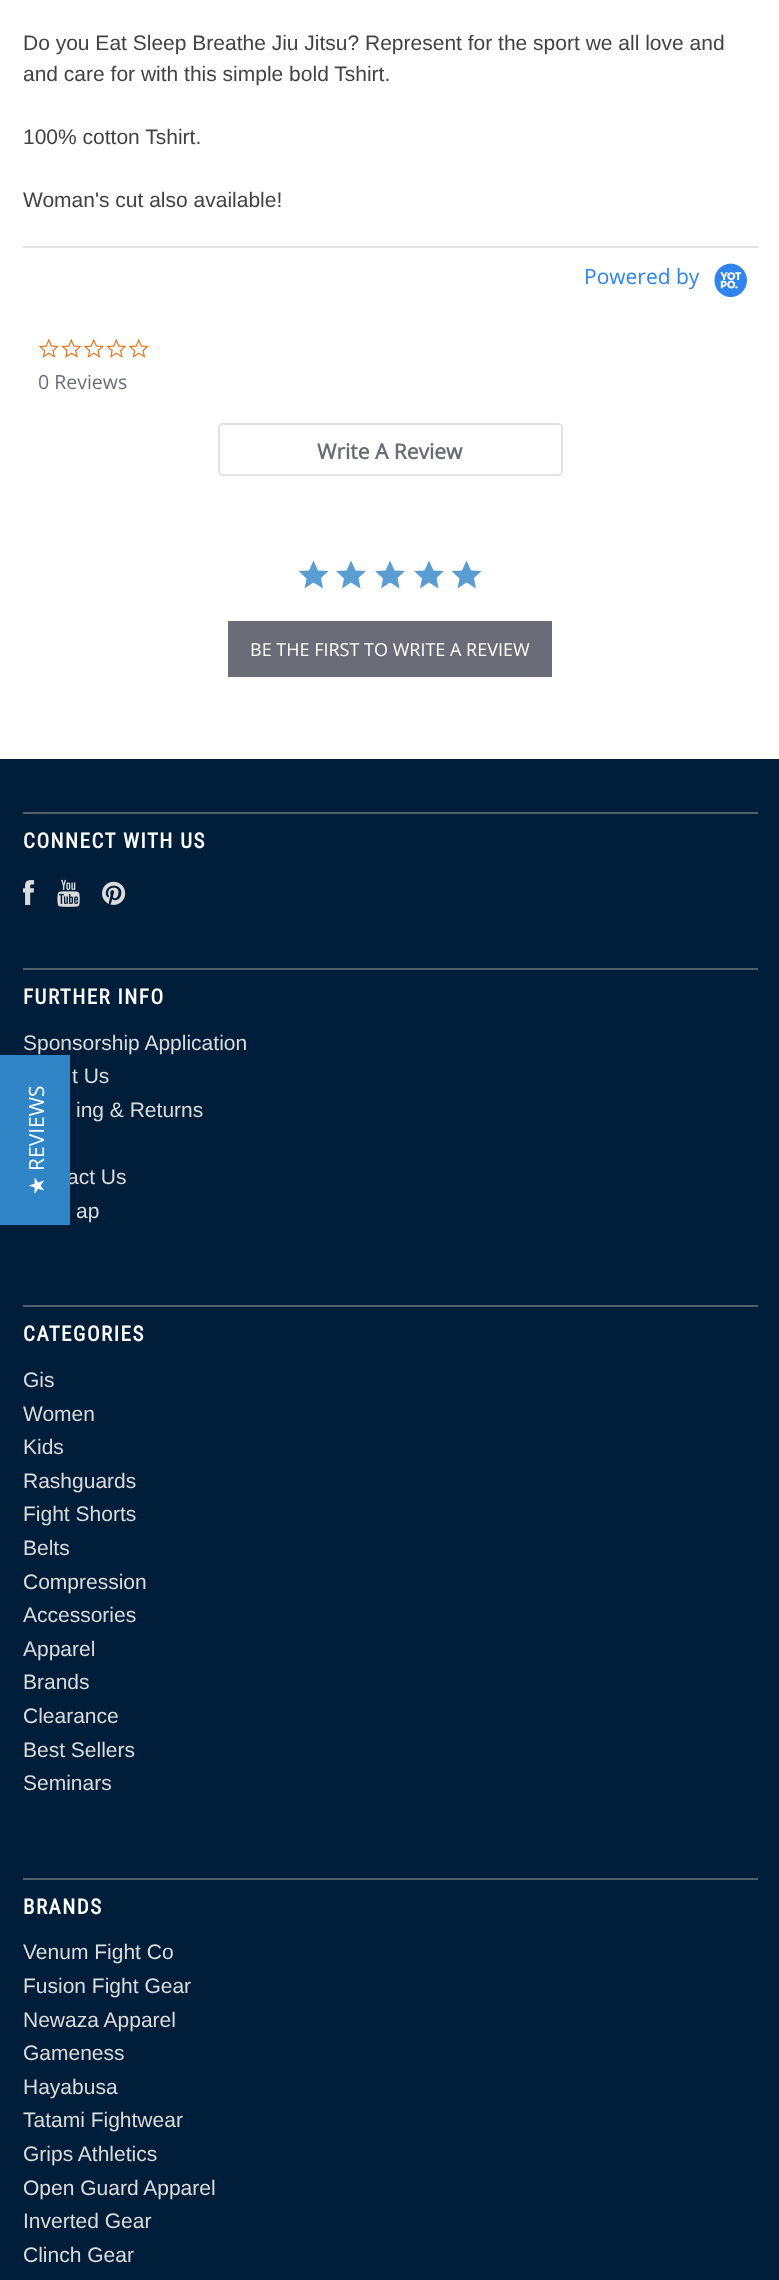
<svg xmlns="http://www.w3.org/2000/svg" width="779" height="2280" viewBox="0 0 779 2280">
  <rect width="100%" height="100%" fill="#ffffff"/>
  <text x="23" y="50" font-family="Liberation Sans" font-size="21" fill="#424242">Do you Eat Sleep Breathe Jiu Jitsu? Represent for the sport we all love and</text>
  <text x="23" y="81" font-family="Liberation Sans" font-size="21" fill="#424242">and care for with this simple bold Tshirt.</text>
  <text x="23" y="144" font-family="Liberation Sans" font-size="21" fill="#424242">100% cotton Tshirt.</text>
  <text x="23" y="207" font-family="Liberation Sans" font-size="21" fill="#424242">Woman's cut also available!</text>
  <rect x="23" y="246" width="735" height="2" fill="#e3e3e3"/>
  <text x="584" y="284" font-family="Open Sans" font-size="21" fill="#2f84ed">Powered by</text>
  <image x="714" y="263" width="33" height="34" href="img1.png"/>
  <image x="38" y="338" width="21" height="20" href="img2.png"/>
  <image x="61" y="338" width="21" height="20" href="img3.png"/>
  <image x="83" y="338" width="21" height="20" href="img2.png"/>
  <image x="106" y="338" width="21" height="20" href="img3.png"/>
  <image x="128" y="338" width="21" height="20" href="img2.png"/>
  <text x="38" y="389" font-family="Open Sans" font-size="19.5" fill="#6b6d76">0 Reviews</text>
  <rect x="219" y="424" width="343" height="51" rx="4" fill="none" stroke="#e3e3e3" stroke-width="2"/>
  <text x="317" y="459" font-family="Open Sans" font-size="21" font-weight="bold" fill="#6b6d76">Write A Review</text>
  <path d="M323 588.5L313.5 582.5L304.5 588.5L306.5 578.5L298.5 571L309 570.5L313.5 560.5L318 570.5L328.5 571L321 578Z" fill="#599dd2"/>
  <path d="M360.5 588.5L351 582.5L342 588.5L344 578.5L336 571L346.5 570.5L351 560.5L355.5 570.5L366 571L358.5 578Z" fill="#599dd2"/>
  <path d="M399.5 588.5L390 582.5L381 588.5L383 578.5L375 571L385.5 570.5L390 560.5L394.5 570.5L405 571L397.5 578Z" fill="#599dd2"/>
  <path d="M438.5 588.5L429 582.5L420 588.5L422 578.5L414 571L424.5 570.5L429 560.5L433.5 570.5L444 571L436.5 578Z" fill="#599dd2"/>
  <path d="M476 588.5L466.5 582.5L457.5 588.5L459.5 578.5L451.5 571L462 570.5L466.5 560.5L471 570.5L481.5 571L474 578Z" fill="#599dd2"/>
  <rect x="228" y="621" width="324" height="56" fill="#6a6c77"/>
  <text x="250" y="656" font-family="Open Sans" font-size="18" fill="#ffffff">BE THE FIRST TO WRITE A REVIEW</text>
  <rect x="0" y="759" width="779" height="1521" fill="#001e3a"/>
  <rect x="23" y="812" width="735" height="2" fill="#52606e"/>
  <text x="23" y="848" font-family="Roboto Condensed" font-size="21" font-weight="bold" letter-spacing="1.5" fill="#ffffff">CONNECT WITH US</text>
  <image x="23" y="880" width="12" height="25" href="img4.png"/>
  <image x="57" y="879" width="23" height="28" href="img5.png"/>
  <image x="102" y="881" width="24" height="24" href="img6.png"/>
  <rect x="23" y="968" width="735" height="2" fill="#52606e"/>
  <text x="23" y="1004" font-family="Roboto Condensed" font-size="21" font-weight="bold" letter-spacing="1.5" fill="#ffffff">FURTHER INFO</text>
  <text x="23" y="1050" font-family="Liberation Sans" font-size="21" fill="#dbdbdb">Sponsorship Application</text>
  <text x="72" y="1083" font-family="Liberation Sans" font-size="21" fill="#dbdbdb">t Us</text>
  <text x="76" y="1117" font-family="Liberation Sans" font-size="21" fill="#dbdbdb">ing &amp; Returns</text>
  <text x="67" y="1184" font-family="Liberation Sans" font-size="21" fill="#dbdbdb">act Us</text>
  <text x="76" y="1218" font-family="Liberation Sans" font-size="21" fill="#dbdbdb">ap</text>
  <rect x="23" y="1305" width="735" height="2" fill="#52606e"/>
  <text x="23" y="1341" font-family="Roboto Condensed" font-size="21" font-weight="bold" letter-spacing="1.5" fill="#ffffff">CATEGORIES</text>
  <text x="23" y="1387" font-family="Liberation Sans" font-size="21" fill="#dbdbdb">Gis</text>
  <text x="23" y="1421" font-family="Liberation Sans" font-size="21" fill="#dbdbdb">Women</text>
  <text x="23" y="1454" font-family="Liberation Sans" font-size="21" fill="#dbdbdb">Kids</text>
  <text x="23" y="1488" font-family="Liberation Sans" font-size="21" fill="#dbdbdb">Rashguards</text>
  <text x="23" y="1521" font-family="Liberation Sans" font-size="21" fill="#dbdbdb">Fight Shorts</text>
  <text x="23" y="1555" font-family="Liberation Sans" font-size="21" fill="#dbdbdb">Belts</text>
  <text x="23" y="1589" font-family="Liberation Sans" font-size="21" fill="#dbdbdb">Compression</text>
  <text x="23" y="1622" font-family="Liberation Sans" font-size="21" fill="#dbdbdb">Accessories</text>
  <text x="23" y="1656" font-family="Liberation Sans" font-size="21" fill="#dbdbdb">Apparel</text>
  <text x="23" y="1689" font-family="Liberation Sans" font-size="21" fill="#dbdbdb">Brands</text>
  <text x="23" y="1723" font-family="Liberation Sans" font-size="21" fill="#dbdbdb">Clearance</text>
  <text x="23" y="1757" font-family="Liberation Sans" font-size="21" fill="#dbdbdb">Best Sellers</text>
  <text x="23" y="1790" font-family="Liberation Sans" font-size="21" fill="#dbdbdb">Seminars</text>
  <rect x="23" y="1878" width="735" height="2" fill="#52606e"/>
  <text x="23" y="1914" font-family="Roboto Condensed" font-size="21" font-weight="bold" letter-spacing="1.5" fill="#ffffff">BRANDS</text>
  <text x="23" y="1959" font-family="Liberation Sans" font-size="21" fill="#dbdbdb">Venum Fight Co</text>
  <text x="23" y="1993" font-family="Liberation Sans" font-size="21" fill="#dbdbdb">Fusion Fight Gear</text>
  <text x="23" y="2027" font-family="Liberation Sans" font-size="21" fill="#dbdbdb">Newaza Apparel</text>
  <text x="23" y="2060" font-family="Liberation Sans" font-size="21" fill="#dbdbdb">Gameness</text>
  <text x="23" y="2094" font-family="Liberation Sans" font-size="21" fill="#dbdbdb">Hayabusa</text>
  <text x="23" y="2127" font-family="Liberation Sans" font-size="21" fill="#dbdbdb">Tatami Fightwear</text>
  <text x="23" y="2161" font-family="Liberation Sans" font-size="21" fill="#dbdbdb">Grips Athletics</text>
  <text x="23" y="2195" font-family="Liberation Sans" font-size="21" fill="#dbdbdb">Open Guard Apparel</text>
  <text x="23" y="2228" font-family="Liberation Sans" font-size="21" fill="#dbdbdb">Inverted Gear</text>
  <text x="23" y="2262" font-family="Liberation Sans" font-size="21" fill="#dbdbdb">Clinch Gear</text>
  <rect x="0" y="1055" width="70" height="170" fill="#3085c7"/>
  <text x="44" y="1171" transform="rotate(-90 44 1171)" font-family="Open Sans" font-size="21" fill="#ffffff">REVIEWS</text>
  <text x="44" y="1195" transform="rotate(-90 44 1195)" font-family="DejaVu Sans" font-size="21" fill="#ffffff">★</text>
</svg>
